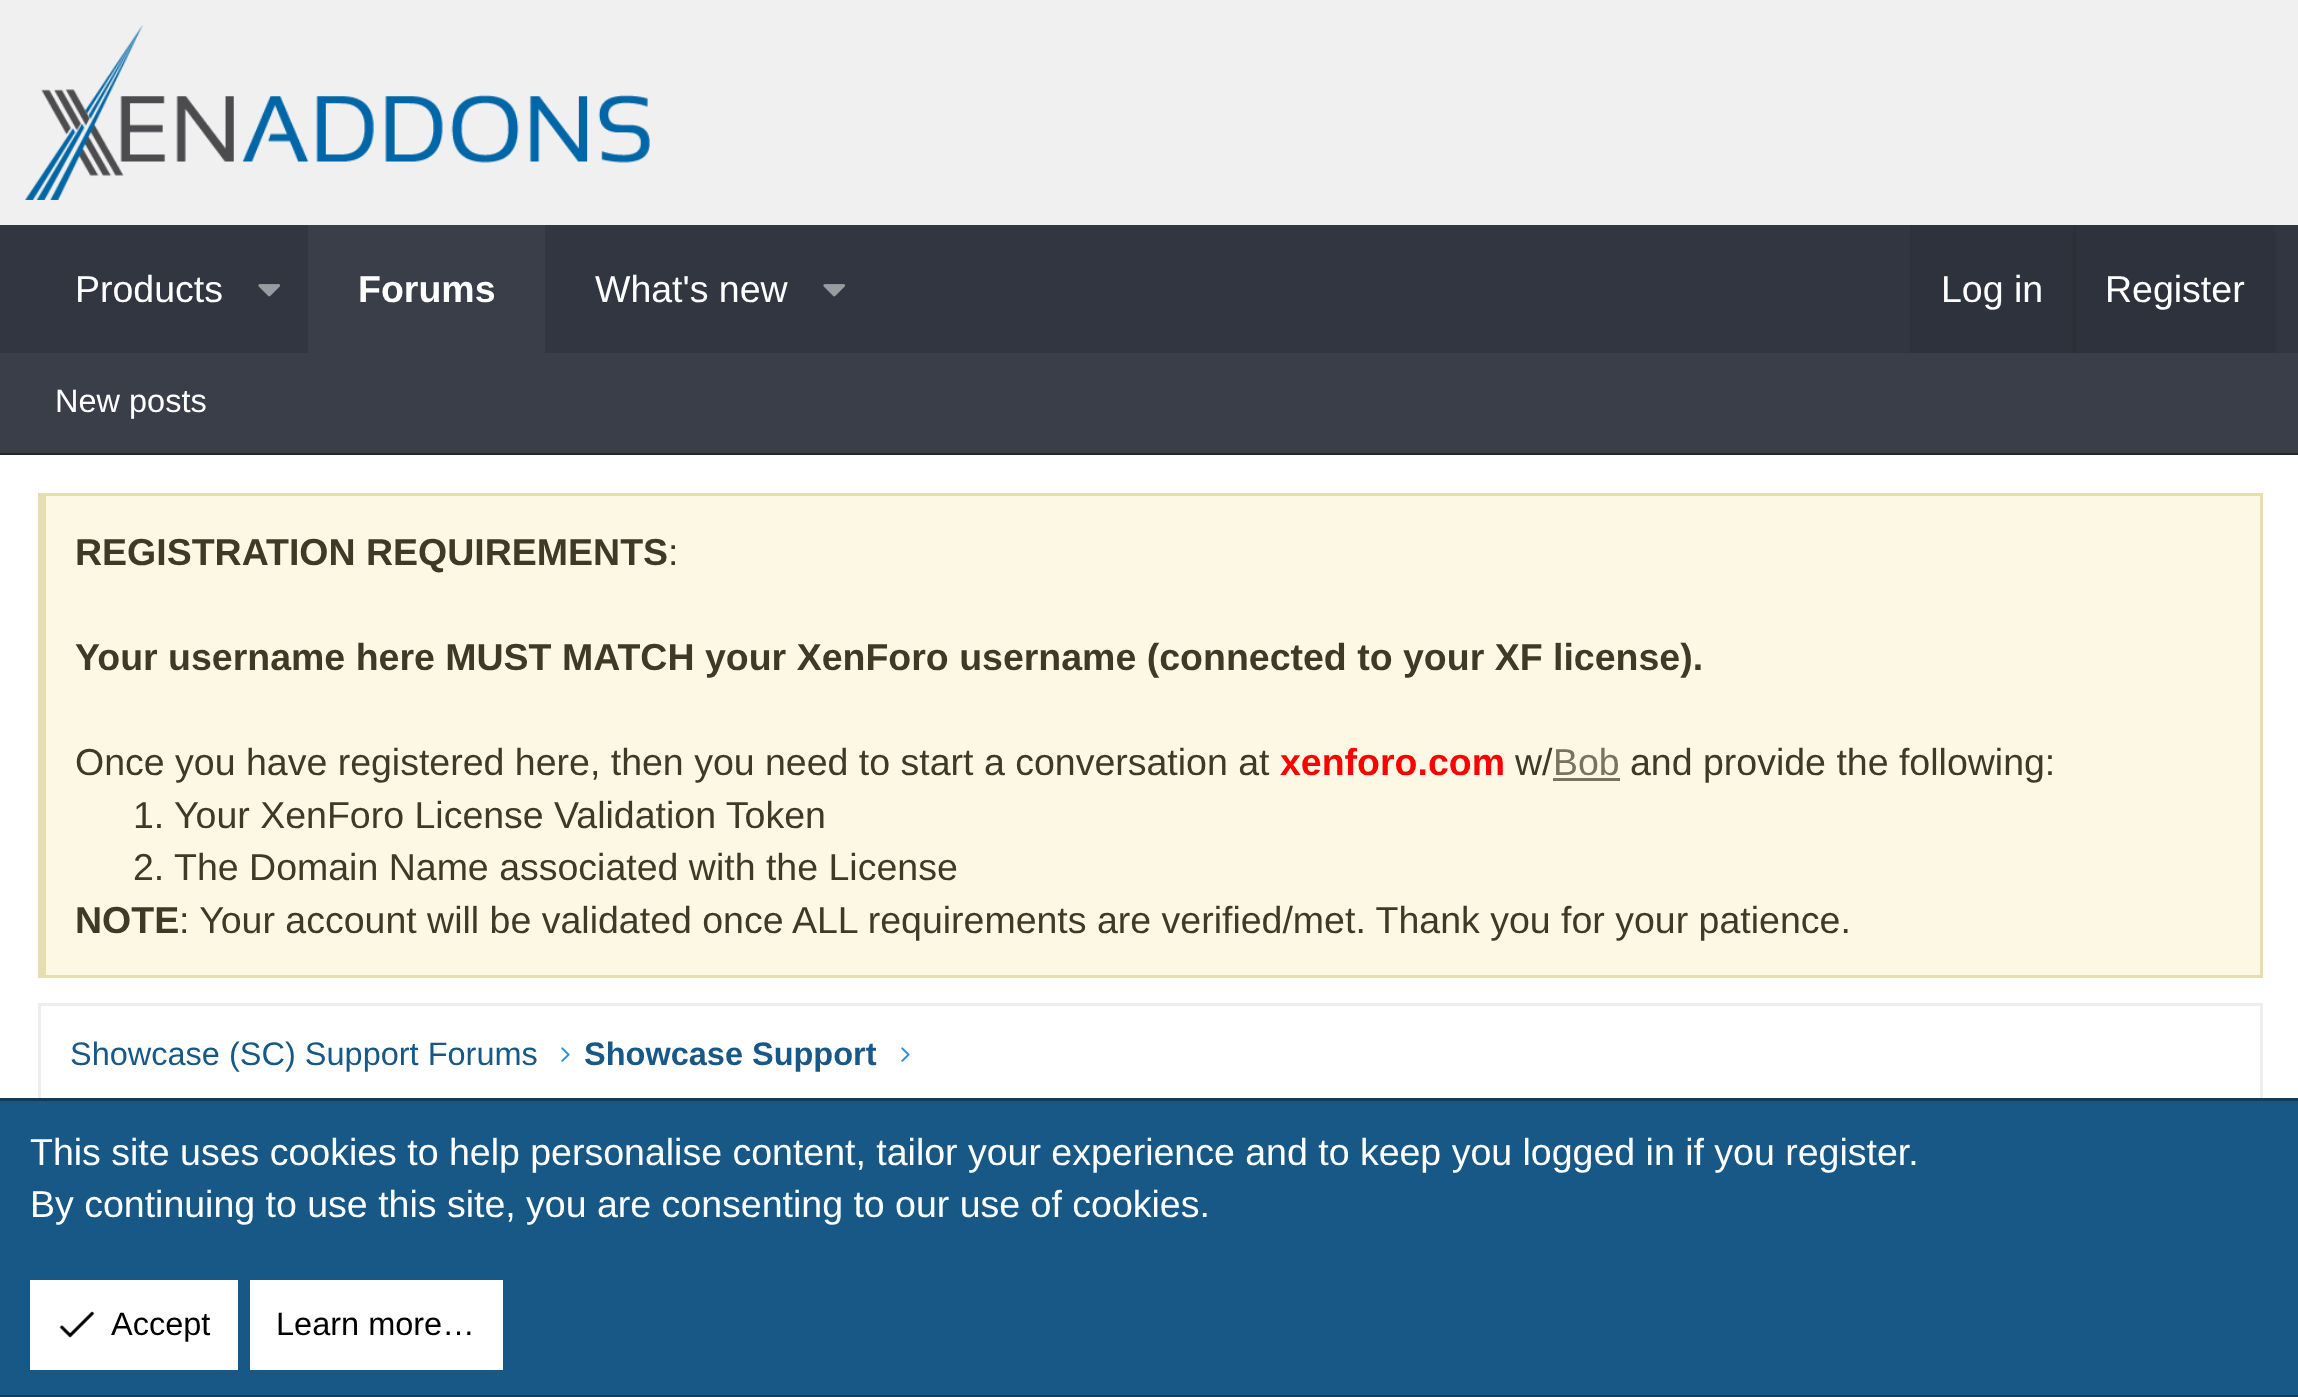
<svg xmlns="http://www.w3.org/2000/svg" width="2298" height="1397" viewBox="0 0 2298 1397">
  <rect width="100%" height="100%" fill="#f0f0f0"/>
  <image x="25" y="25" width="625" height="175" href="img1.png"/>
  <rect x="0" y="225" width="2298" height="128" fill="#313641"/>
  <text x="75" y="302" font-family="Liberation Sans" font-size="37.5" fill="#ffffff">Products</text>
  <image x="258" y="284" width="22" height="13" href="img2.png"/>
  <rect x="308" y="225" width="237" height="128" fill="#393e49"/>
  <text x="358" y="302" font-family="Liberation Sans" font-size="37.5" font-weight="bold" fill="#ffffff">Forums</text>
  <text x="595" y="302" font-family="Liberation Sans" font-size="37.5" fill="#ffffff">What's new</text>
  <image x="823" y="284" width="22" height="13" href="img2.png"/>
  <rect x="1910" y="225" width="365" height="128" fill="#2e323c"/>
  <text x="1941" y="302" font-family="Liberation Sans" font-size="37.5" fill="#ffffff">Log in</text>
  <rect x="2073" y="225" width="3" height="128" fill="#2b2f37"/>
  <text x="2105" y="302" font-family="Liberation Sans" font-size="37.5" fill="#ffffff">Register</text>
  <rect x="0" y="353" width="2298" height="100" fill="#393e49"/>
  <rect x="0" y="453" width="2298" height="2" fill="#23262c"/>
  <text x="55" y="412" font-family="Liberation Sans" font-size="32.5" fill="#ffffff">New posts</text>
  <rect x="0" y="455" width="2298" height="643" fill="#ffffff"/>
  <rect x="46" y="496" width="2214" height="479" fill="#fcf8e3"/>
  <rect x="38" y="493" width="2225" height="3" fill="#e6ddb0"/>
  <rect x="2260" y="493" width="3" height="485" fill="#e6ddb0"/>
  <rect x="38" y="975" width="2225" height="3" fill="#e6ddb0"/>
  <rect x="38" y="493" width="8" height="485" fill="#e6ddb0"/>
  <text x="75" y="565" font-family="Liberation Sans" font-size="37.5" font-weight="bold" fill="#3f3a23">REGISTRATION REQUIREMENTS</text>
  <text x="668" y="565" font-family="Liberation Sans" font-size="37.5" fill="#3f3a23">:</text>
  <text x="75" y="670" font-family="Liberation Sans" font-size="37.5" font-weight="bold" fill="#3f3a23">Your username here MUST MATCH your XenForo username (connected to your XF license).</text>
  <text x="75" y="775" font-family="Liberation Sans" font-size="37.5" fill="#3f3a23">Once you have registered here, then you need to start a conversation at</text>
  <text x="1280" y="775" font-family="Liberation Sans" font-size="37.5" font-weight="bold" fill="#ff0000">xenforo.com</text>
  <text x="1515" y="775" font-family="Liberation Sans" font-size="37.5" fill="#3f3a23">w/</text>
  <text x="1553" y="775" font-family="Liberation Sans" font-size="37.5" fill="#78735d">Bob</text>
  <rect x="1553" y="778" width="67" height="3" fill="#78735d"/>
  <text x="1630" y="775" font-family="Liberation Sans" font-size="37.5" fill="#3f3a23">and provide the following:</text>
  <text x="133" y="828" font-family="Liberation Sans" font-size="37.5" fill="#3f3a23">1. Your XenForo License Validation Token</text>
  <text x="133" y="880" font-family="Liberation Sans" font-size="37.5" fill="#3f3a23">2. The Domain Name associated with the License</text>
  <text x="75" y="933" font-family="Liberation Sans" font-size="37.5" font-weight="bold" fill="#3f3a23">NOTE</text>
  <text x="179" y="933" font-family="Liberation Sans" font-size="37.5" fill="#3f3a23">: Your account will be validated once ALL requirements are verified/met. Thank you for your patience.</text>
  <rect x="39.5" y="1004.5" width="2222" height="102" fill="none" stroke="#eeeeee" stroke-width="3"/>
  <text x="70" y="1065" font-family="Liberation Sans" font-size="32.5" fill="#185886">Showcase (SC) Support Forums</text>
  <image x="561" y="1047" width="9" height="15" href="img3.png"/>
  <text x="584" y="1065" font-family="Liberation Sans" font-size="32.5" font-weight="bold" fill="#185886">Showcase Support</text>
  <image x="901" y="1047" width="9" height="15" href="img3.png"/>
  <rect x="0" y="1101" width="2298" height="294" fill="#185886"/>
  <rect x="0" y="1098" width="2298" height="3" fill="#103c5b"/>
  <rect x="0" y="1395" width="2298" height="2" fill="#103c5b"/>
  <text x="30" y="1165" font-family="Liberation Sans" font-size="37.5" fill="#ffffff">This site uses cookies to help personalise content, tailor your experience and to keep you logged in if you register.</text>
  <text x="30" y="1217" font-family="Liberation Sans" font-size="37.5" fill="#ffffff">By continuing to use this site, you are consenting to our use of cookies.</text>
  <rect x="30" y="1280" width="208" height="90" fill="#ffffff"/>
  <image x="59" y="1311" width="36" height="27" href="img4.png"/>
  <text x="111" y="1335" font-family="Liberation Sans" font-size="32.5" fill="#000000">Accept</text>
  <rect x="250" y="1280" width="253" height="90" fill="#ffffff"/>
  <text x="276" y="1335" font-family="Liberation Sans" font-size="32.5" fill="#000000">Learn more…</text>
</svg>
